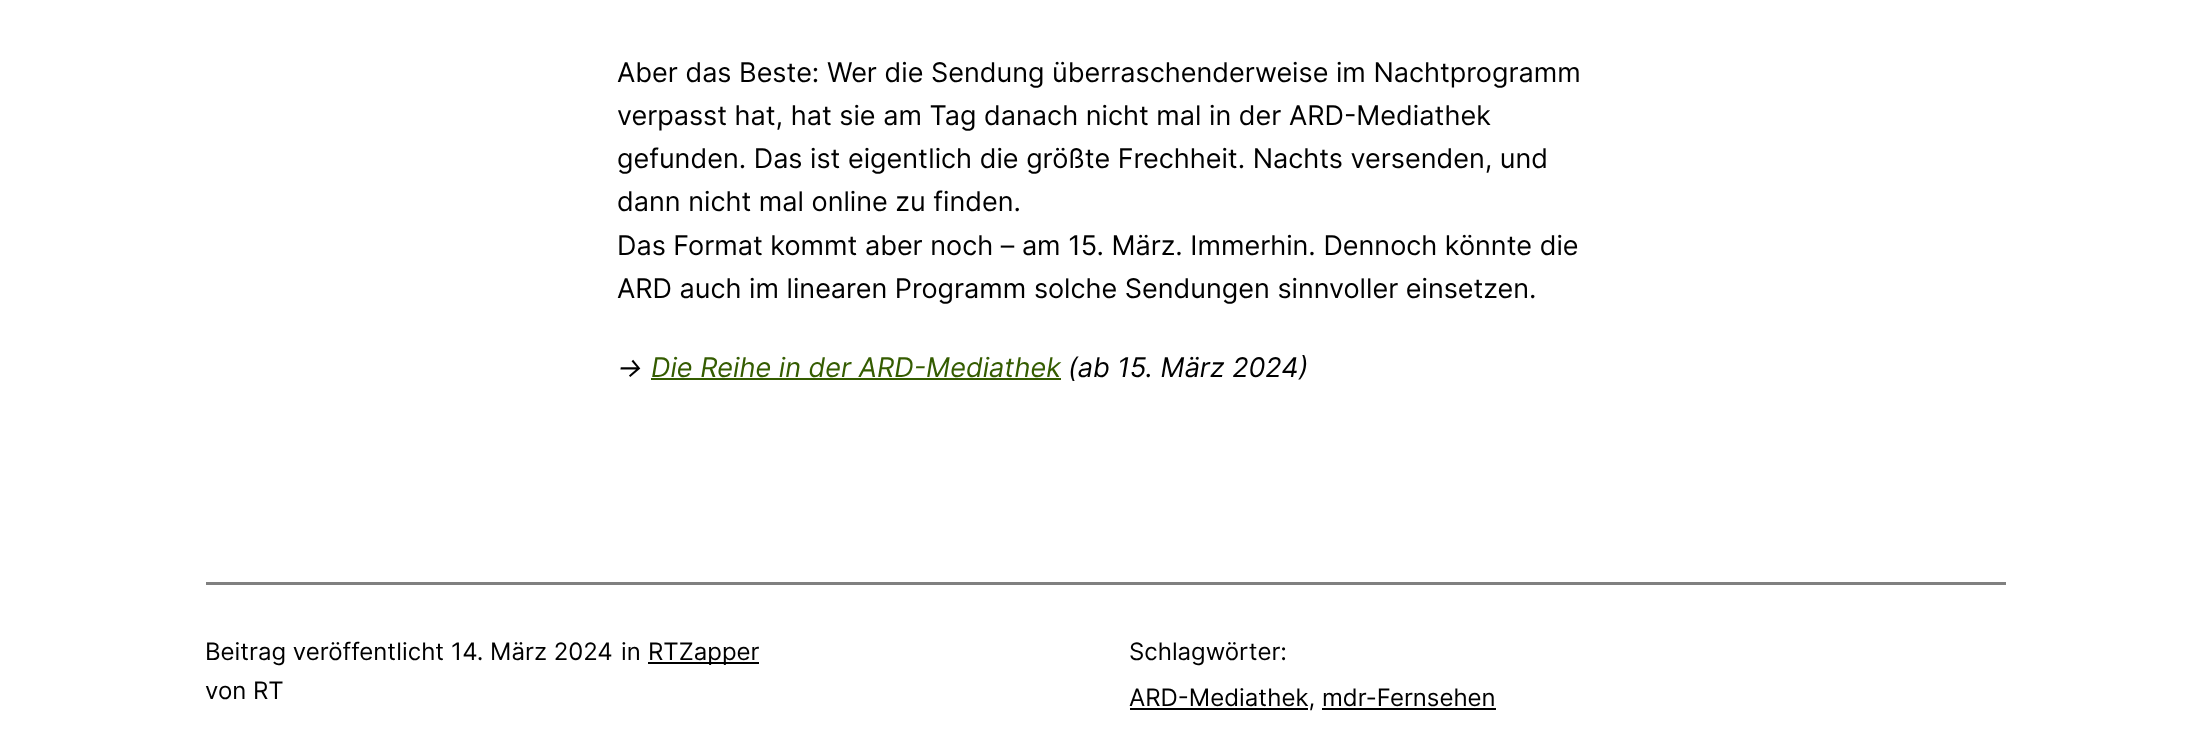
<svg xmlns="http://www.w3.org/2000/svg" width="2209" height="755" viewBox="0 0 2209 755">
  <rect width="100%" height="100%" fill="#ffffff"/>
  <text x="617" y="82" font-family="Inter" font-size="27" fill="#000000">Aber das Beste: Wer die Sendung überraschenderweise im Nachtprogramm</text>
  <text x="617" y="125" font-family="Inter" font-size="27" fill="#000000">verpasst hat, hat sie am Tag danach nicht mal in der ARD-Mediathek</text>
  <text x="617" y="168" font-family="Inter" font-size="27" fill="#000000">gefunden. Das ist eigentlich die größte Frechheit. Nachts versenden, und</text>
  <text x="617" y="211" font-family="Inter" font-size="27" fill="#000000">dann nicht mal online zu finden.</text>
  <text x="617" y="255" font-family="Inter" font-size="27" fill="#000000">Das Format kommt aber noch – am 15. März. Immerhin. Dennoch könnte die</text>
  <text x="617" y="298" font-family="Inter" font-size="27" fill="#000000">ARD auch im linearen Programm solche Sendungen sinnvoller einsetzen.</text>
  <text x="617" y="377" font-family="Inter" font-size="27" font-style="italic" fill="#000000">-&gt;</text>
  <text x="651" y="377" font-family="Inter" font-size="27" font-style="italic" fill="#345c00">Die Reihe in der ARD-Mediathek</text>
  <rect x="651" y="378" width="410" height="2" fill="#345c00"/>
  <text x="1068" y="377" font-family="Inter" font-size="27" font-style="italic" fill="#000000">(ab 15. März 2024)</text>
  <rect x="206" y="582" width="1800" height="3" fill="#808080"/>
  <text x="205" y="660" font-family="Inter" font-size="24" fill="#000000">Beitrag veröffentlicht</text>
  <text x="451" y="660" font-family="Inter" font-size="24" fill="#000000">14. März 2024</text>
  <text x="621" y="660" font-family="Inter" font-size="24" fill="#000000">in</text>
  <rect x="648" y="662" width="111" height="2" fill="#000000"/>
  <text x="648" y="660" font-family="Inter" font-size="24" fill="#000000">RTZapper</text>
  <text x="205" y="699" font-family="Inter" font-size="24" fill="#000000">von</text>
  <text x="253" y="699" font-family="Inter" font-size="24" fill="#000000">RT</text>
  <text x="1129" y="660" font-family="Inter" font-size="24" fill="#000000">Schlagwörter:</text>
  <rect x="1130" y="708" width="178" height="2" fill="#000000"/>
  <text x="1129" y="706" font-family="Inter" font-size="24" fill="#000000">ARD-Mediathek, mdr-Fernsehen</text>
  <rect x="1322" y="708" width="174" height="2" fill="#000000"/>
</svg>
